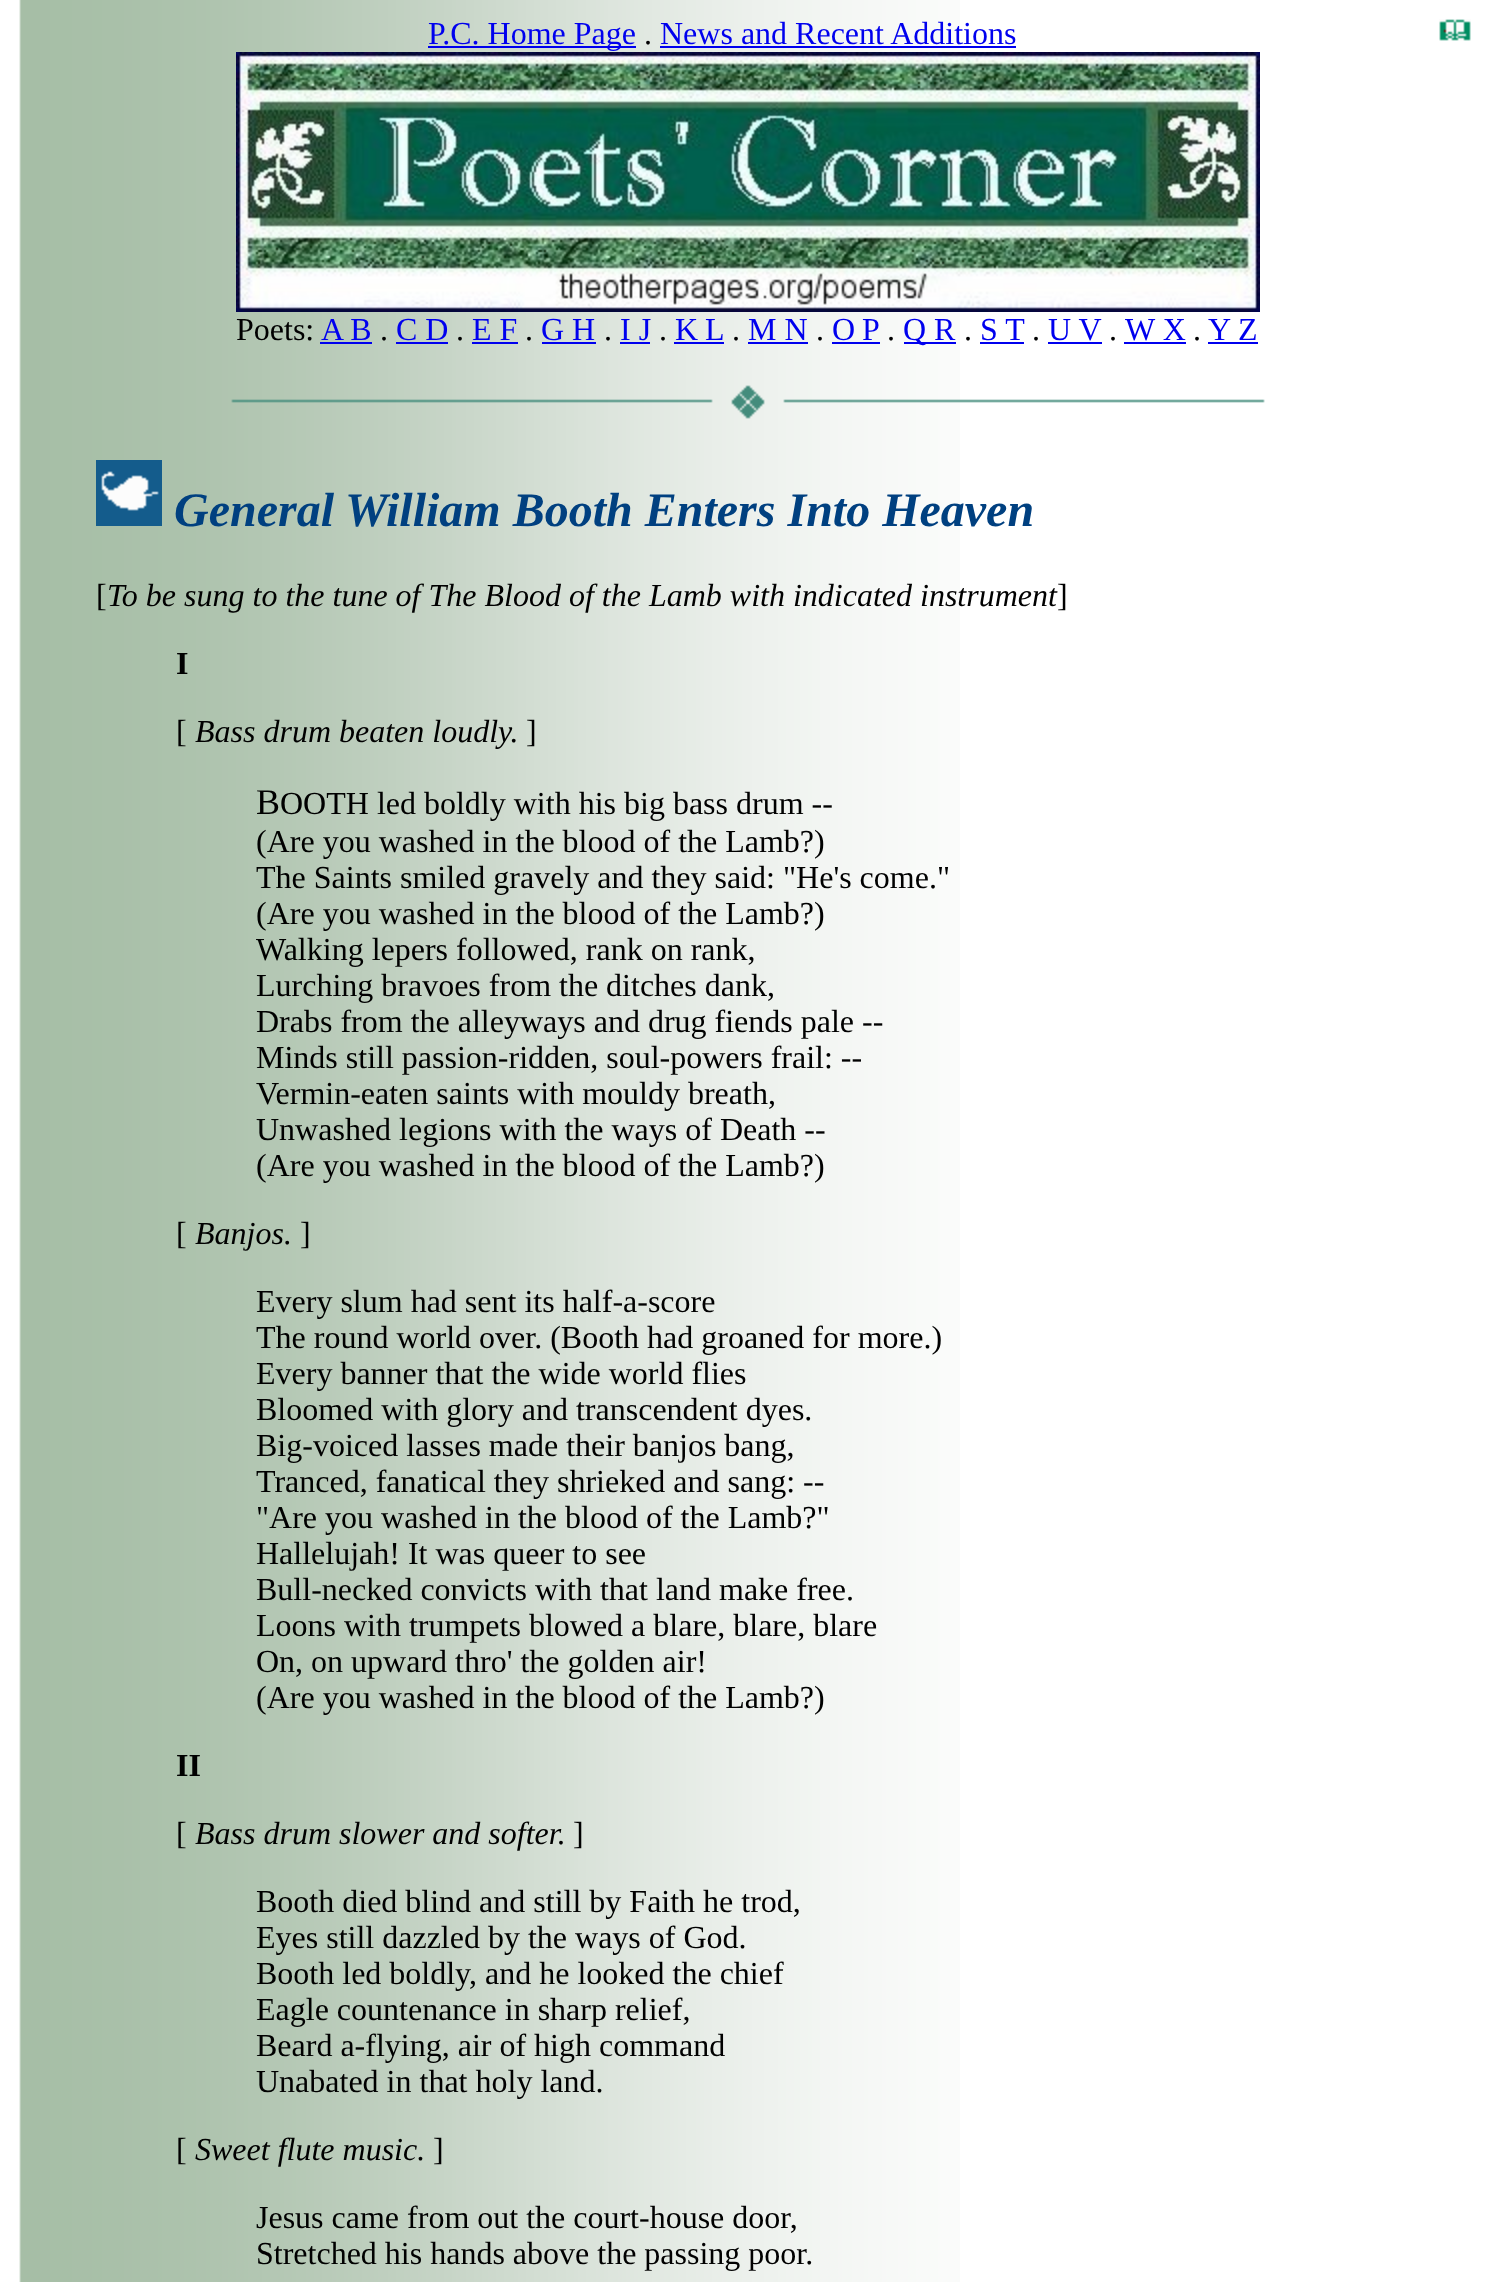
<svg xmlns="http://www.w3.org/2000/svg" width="1494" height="2282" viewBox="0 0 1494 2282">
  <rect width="100%" height="100%" fill="#ffffff"/>
  <image x="19" y="0" width="941" height="2282" href="img1.png"/>
  <rect x="428" y="46" width="208" height="2" fill="#0000ee"/>
  <text x="428" y="44" font-family="Liberation Serif" font-size="32" fill="#0000ee">P.C. Home Page</text>
  <text x="644" y="44" font-family="Liberation Serif" font-size="32" fill="#000000">.</text>
  <text x="660" y="44" font-family="Liberation Serif" font-size="32" fill="#0000ee">News and Recent Additions</text>
  <rect x="660" y="46" width="356" height="2" fill="#0000ee"/>
  <image x="1439" y="19" width="32" height="22" href="img2.png"/>
  <image x="236" y="52" width="1024" height="260" href="img3.png"/>
  <text x="236" y="340" font-family="Liberation Serif" font-size="32" fill="#000000">Poets:</text>
  <text x="321" y="340" font-family="Liberation Serif" font-size="32" fill="#0000ee">A B</text>
  <rect x="320" y="342" width="52" height="2" fill="#0000ee"/>
  <text x="380" y="340" font-family="Liberation Serif" font-size="32" fill="#000000">.</text>
  <text x="396" y="340" font-family="Liberation Serif" font-size="32" fill="#0000ee">C D</text>
  <rect x="396" y="342" width="52" height="2" fill="#0000ee"/>
  <text x="456" y="340" font-family="Liberation Serif" font-size="32" fill="#000000">.</text>
  <text x="472" y="340" font-family="Liberation Serif" font-size="32" fill="#0000ee">E F</text>
  <rect x="472" y="342" width="46" height="2" fill="#0000ee"/>
  <text x="525" y="340" font-family="Liberation Serif" font-size="32" fill="#000000">.</text>
  <text x="541" y="340" font-family="Liberation Serif" font-size="32" fill="#0000ee">G H</text>
  <rect x="542" y="342" width="54" height="2" fill="#0000ee"/>
  <text x="604" y="340" font-family="Liberation Serif" font-size="32" fill="#000000">.</text>
  <text x="620" y="340" font-family="Liberation Serif" font-size="32" fill="#0000ee">I J</text>
  <rect x="620" y="342" width="30" height="2" fill="#0000ee"/>
  <text x="659" y="340" font-family="Liberation Serif" font-size="32" fill="#000000">.</text>
  <text x="675" y="340" word-spacing="-1" font-family="Liberation Serif" font-size="32" fill="#0000ee">K L</text>
  <rect x="674" y="342" width="50" height="2" fill="#0000ee"/>
  <text x="732" y="340" font-family="Liberation Serif" font-size="32" fill="#000000">.</text>
  <text x="748" y="340" font-family="Liberation Serif" font-size="32" fill="#0000ee">M N</text>
  <rect x="748" y="342" width="60" height="2" fill="#0000ee"/>
  <text x="816" y="340" font-family="Liberation Serif" font-size="32" fill="#000000">.</text>
  <text x="832" y="340" word-spacing="-1" font-family="Liberation Serif" font-size="32" fill="#0000ee">O P</text>
  <rect x="832" y="342" width="48" height="2" fill="#0000ee"/>
  <text x="887" y="340" font-family="Liberation Serif" font-size="32" fill="#000000">.</text>
  <rect x="904" y="342" width="52" height="2" fill="#0000ee"/>
  <text x="903" y="340" font-family="Liberation Serif" font-size="32" fill="#0000ee">Q R</text>
  <text x="964" y="340" font-family="Liberation Serif" font-size="32" fill="#000000">.</text>
  <text x="980" y="340" font-family="Liberation Serif" font-size="32" fill="#0000ee">S T</text>
  <rect x="980" y="342" width="44" height="2" fill="#0000ee"/>
  <text x="1032" y="340" font-family="Liberation Serif" font-size="32" fill="#000000">.</text>
  <text x="1048" y="340" font-family="Liberation Serif" font-size="32" fill="#0000ee">U V</text>
  <rect x="1048" y="342" width="54" height="2" fill="#0000ee"/>
  <text x="1109" y="340" font-family="Liberation Serif" font-size="32" fill="#000000">.</text>
  <text x="1125" y="340" font-family="Liberation Serif" font-size="32" fill="#0000ee">W X</text>
  <rect x="1124" y="342" width="62" height="2" fill="#0000ee"/>
  <text x="1193" y="340" font-family="Liberation Serif" font-size="32" fill="#000000">.</text>
  <text x="1208" y="340" font-family="Liberation Serif" font-size="32" fill="#0000ee">Y Z</text>
  <rect x="1208" y="342" width="50" height="2" fill="#0000ee"/>
  <image x="231" y="385" width="1034" height="34" href="img4.png"/>
  <image x="96" y="460" width="66" height="66" href="img5.png"/>
  <text x="174" y="526" font-family="Liberation Serif" font-size="48" font-weight="bold" font-style="italic" fill="#004080">General William Booth Enters Into Heaven</text>
  <text x="96" y="606" font-family="Liberation Serif" font-size="32" fill="#000000">[</text>
  <text x="107" y="606" font-family="Liberation Serif" font-size="32" font-style="italic" fill="#000000">To be sung to the tune of The Blood of the Lamb with indicated instrument</text>
  <text x="1057" y="606" font-family="Liberation Serif" font-size="32" fill="#000000">]</text>
  <text x="176" y="674" font-family="Liberation Serif" font-size="32" font-weight="bold" fill="#000000">I</text>
  <text x="176" y="742" font-family="Liberation Serif" font-size="32" fill="#000000">[</text>
  <text x="195" y="742" font-family="Liberation Serif" font-size="32" font-style="italic" fill="#000000">Bass drum beaten loudly.</text>
  <text x="526" y="742" font-family="Liberation Serif" font-size="32" fill="#000000">]</text>
  <text x="256" y="814" font-family="Liberation Serif" font-size="36" fill="#000000">B</text>
  <text x="280" y="814" font-family="Liberation Serif" font-size="32" fill="#000000">OOTH led boldly with his big bass drum --</text>
  <text x="256" y="852" font-family="Liberation Serif" font-size="32" fill="#000000">(Are you washed in the blood of the Lamb?)</text>
  <text x="256" y="888" font-family="Liberation Serif" font-size="32" fill="#000000">The Saints smiled gravely and they said: "He's come."</text>
  <text x="256" y="924" font-family="Liberation Serif" font-size="32" fill="#000000">(Are you washed in the blood of the Lamb?)</text>
  <text x="256" y="960" font-family="Liberation Serif" font-size="32" fill="#000000">Walking lepers followed, rank on rank,</text>
  <text x="256" y="996" font-family="Liberation Serif" font-size="32" fill="#000000">Lurching bravoes from the ditches dank,</text>
  <text x="256" y="1032" font-family="Liberation Serif" font-size="32" fill="#000000">Drabs from the alleyways and drug fiends pale --</text>
  <text x="256" y="1068" font-family="Liberation Serif" font-size="32" fill="#000000">Minds still passion-ridden, soul-powers frail: --</text>
  <text x="256" y="1104" font-family="Liberation Serif" font-size="32" fill="#000000">Vermin-eaten saints with mouldy breath,</text>
  <text x="256" y="1140" font-family="Liberation Serif" font-size="32" fill="#000000">Unwashed legions with the ways of Death --</text>
  <text x="256" y="1176" font-family="Liberation Serif" font-size="32" fill="#000000">(Are you washed in the blood of the Lamb?)</text>
  <text x="176" y="1244" font-family="Liberation Serif" font-size="32" fill="#000000">[</text>
  <text x="195" y="1244" font-family="Liberation Serif" font-size="32" font-style="italic" fill="#000000">Banjos.</text>
  <text x="300" y="1244" font-family="Liberation Serif" font-size="32" fill="#000000">]</text>
  <text x="256" y="1312" font-family="Liberation Serif" font-size="32" fill="#000000">Every slum had sent its half-a-score</text>
  <text x="256" y="1348" font-family="Liberation Serif" font-size="32" fill="#000000">The round world over. (Booth had groaned for more.)</text>
  <text x="256" y="1384" font-family="Liberation Serif" font-size="32" fill="#000000">Every banner that the wide world flies</text>
  <text x="256" y="1420" font-family="Liberation Serif" font-size="32" fill="#000000">Bloomed with glory and transcendent dyes.</text>
  <text x="256" y="1456" font-family="Liberation Serif" font-size="32" fill="#000000">Big-voiced lasses made their banjos bang,</text>
  <text x="256" y="1492" font-family="Liberation Serif" font-size="32" fill="#000000">Tranced, fanatical they shrieked and sang: --</text>
  <text x="256" y="1528" font-family="Liberation Serif" font-size="32" fill="#000000">"Are you washed in the blood of the Lamb?"</text>
  <text x="256" y="1564" font-family="Liberation Serif" font-size="32" fill="#000000">Hallelujah! It was queer to see</text>
  <text x="256" y="1600" font-family="Liberation Serif" font-size="32" fill="#000000">Bull-necked convicts with that land make free.</text>
  <text x="256" y="1636" font-family="Liberation Serif" font-size="32" fill="#000000">Loons with trumpets blowed a blare, blare, blare</text>
  <text x="256" y="1672" font-family="Liberation Serif" font-size="32" fill="#000000">On, on upward thro' the golden air!</text>
  <text x="256" y="1708" font-family="Liberation Serif" font-size="32" fill="#000000">(Are you washed in the blood of the Lamb?)</text>
  <text x="176" y="1776" font-family="Liberation Serif" font-size="32" font-weight="bold" fill="#000000">II</text>
  <text x="176" y="1844" font-family="Liberation Serif" font-size="32" fill="#000000">[</text>
  <text x="195" y="1844" font-family="Liberation Serif" font-size="32" font-style="italic" fill="#000000">Bass drum slower and softer.</text>
  <text x="573" y="1844" font-family="Liberation Serif" font-size="32" fill="#000000">]</text>
  <text x="256" y="1912" font-family="Liberation Serif" font-size="32" fill="#000000">Booth died blind and still by Faith he trod,</text>
  <text x="256" y="1948" font-family="Liberation Serif" font-size="32" fill="#000000">Eyes still dazzled by the ways of God.</text>
  <text x="256" y="1984" font-family="Liberation Serif" font-size="32" fill="#000000">Booth led boldly, and he looked the chief</text>
  <text x="256" y="2020" font-family="Liberation Serif" font-size="32" fill="#000000">Eagle countenance in sharp relief,</text>
  <text x="256" y="2056" font-family="Liberation Serif" font-size="32" fill="#000000">Beard a-flying, air of high command</text>
  <text x="256" y="2092" font-family="Liberation Serif" font-size="32" fill="#000000">Unabated in that holy land.</text>
  <text x="176" y="2160" font-family="Liberation Serif" font-size="32" fill="#000000">[</text>
  <text x="195" y="2160" font-family="Liberation Serif" font-size="32" font-style="italic" fill="#000000">Sweet flute music.</text>
  <text x="433" y="2160" font-family="Liberation Serif" font-size="32" fill="#000000">]</text>
  <text x="256" y="2228" font-family="Liberation Serif" font-size="32" fill="#000000">Jesus came from out the court-house door,</text>
  <text x="256" y="2264" font-family="Liberation Serif" font-size="32" fill="#000000">Stretched his hands above the passing poor.</text>
</svg>
